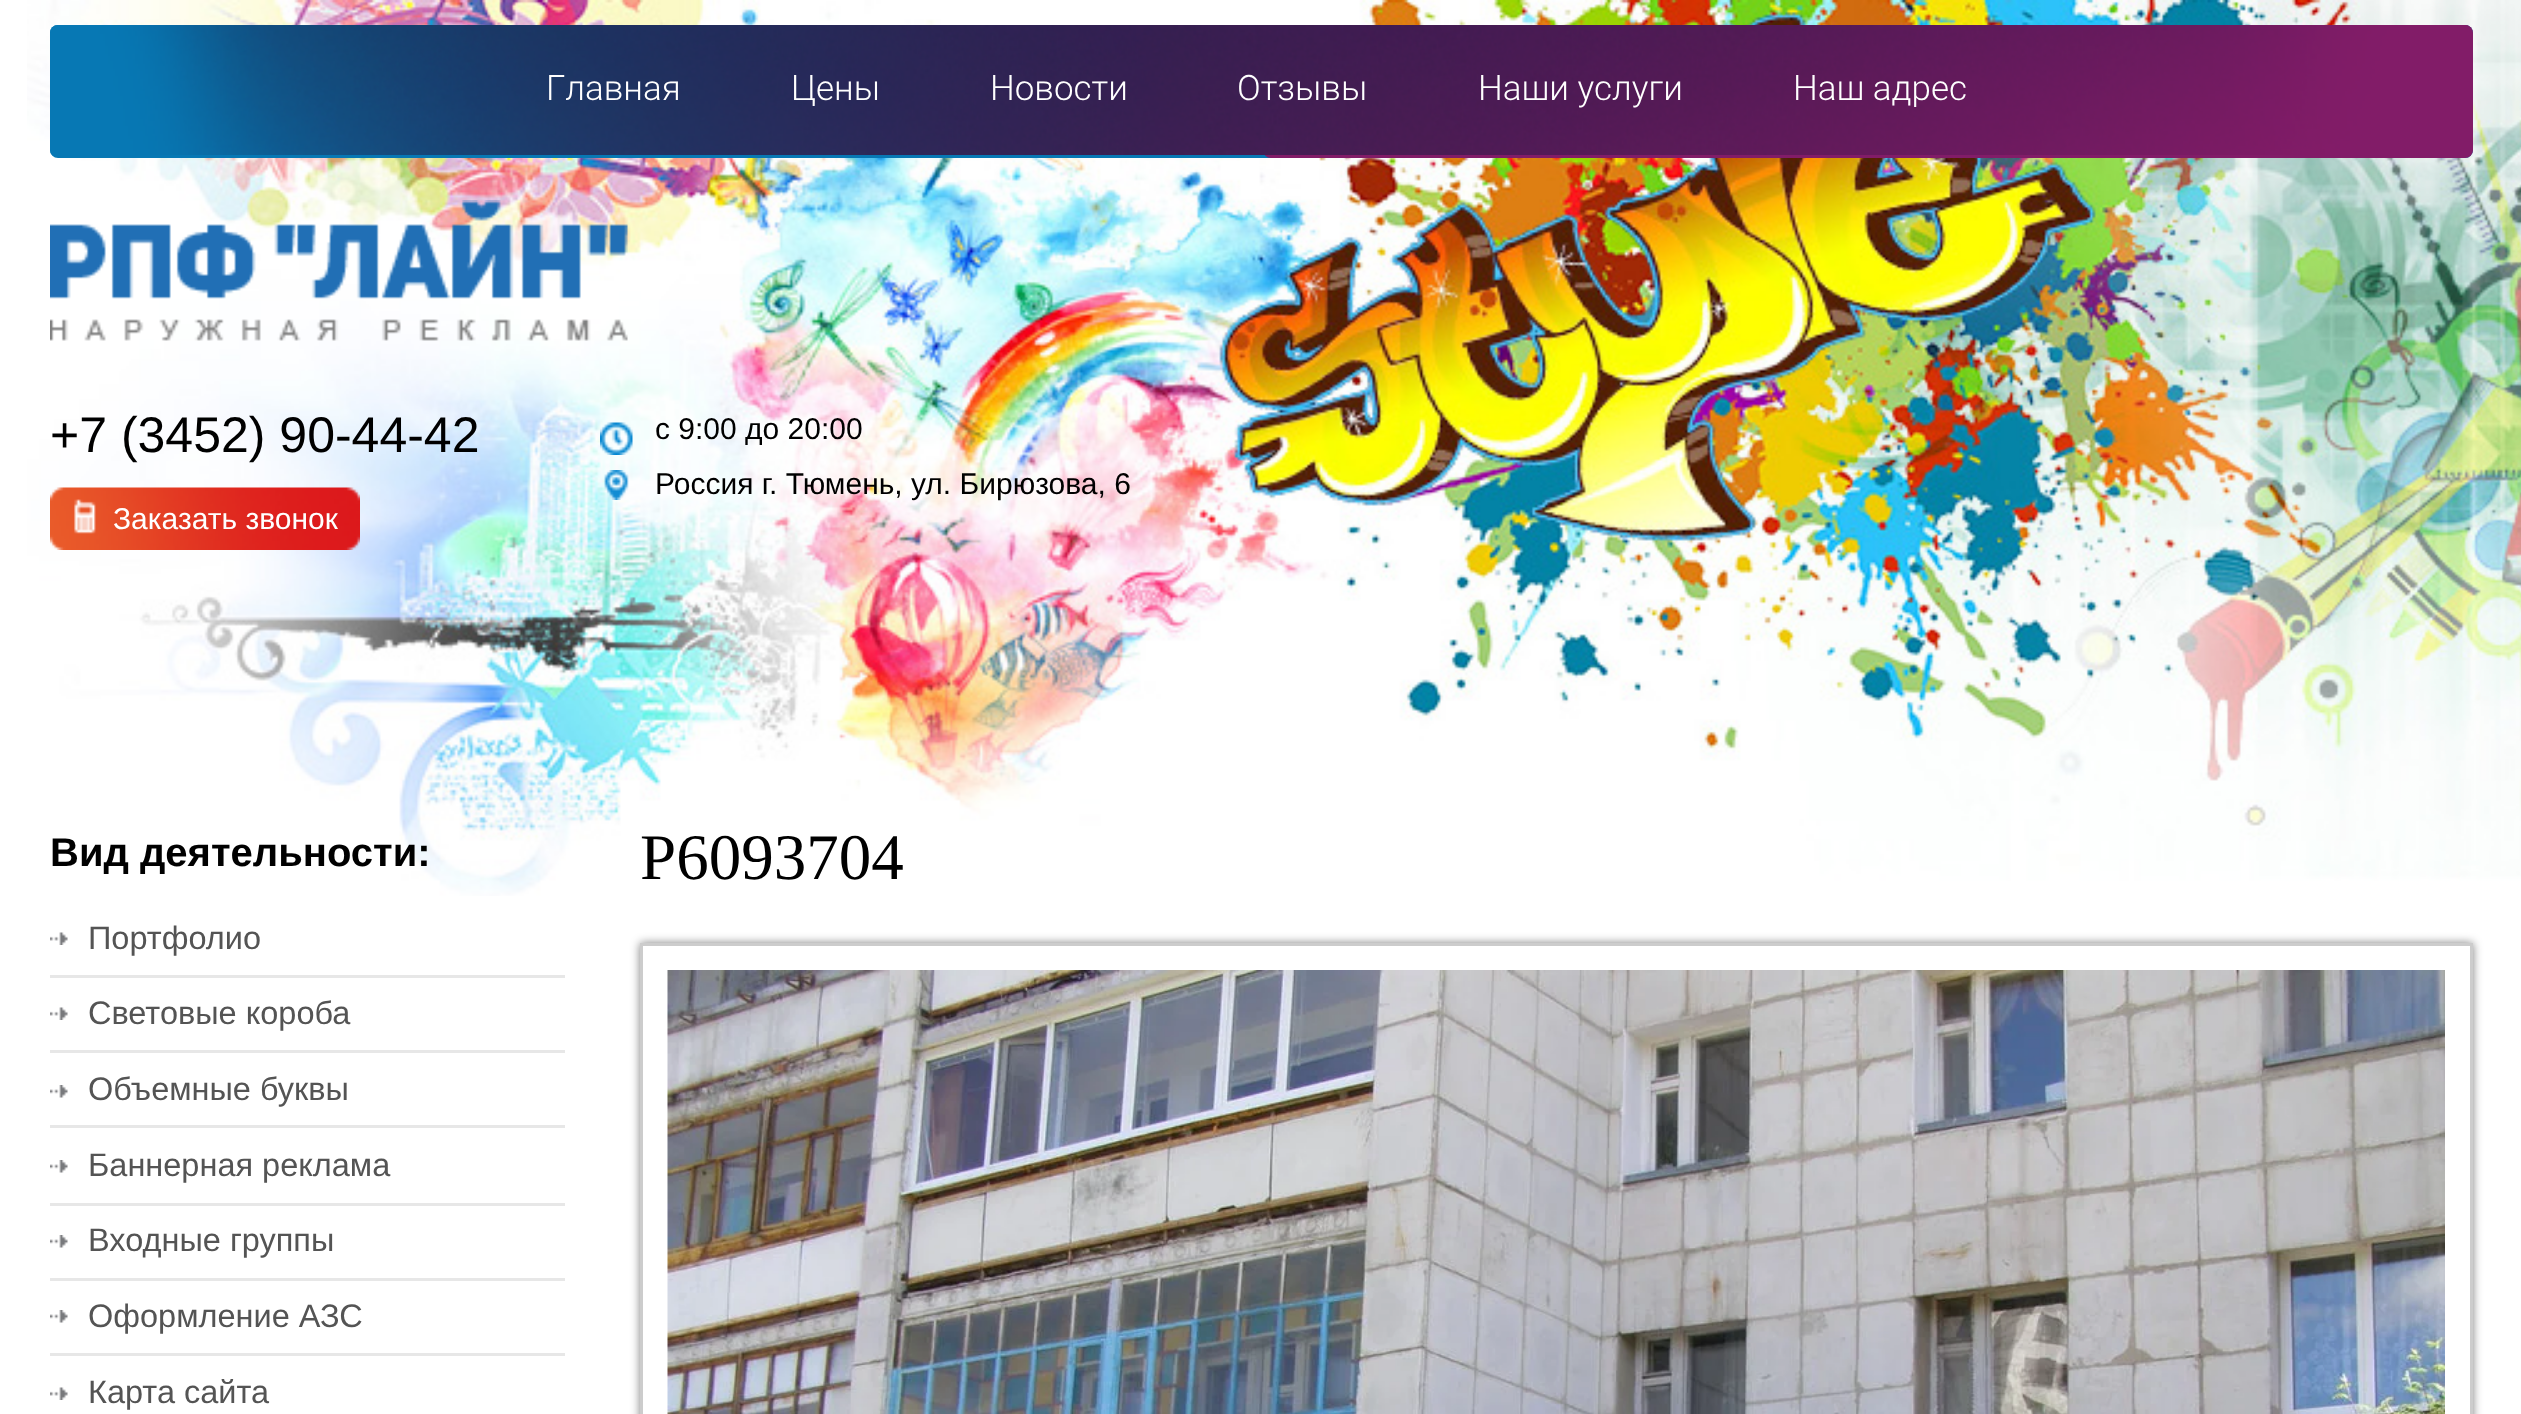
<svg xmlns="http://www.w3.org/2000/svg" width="2521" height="1414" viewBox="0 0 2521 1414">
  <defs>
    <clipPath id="clip1"><path d="M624 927H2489V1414H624ZM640 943H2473V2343H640Z" clip-rule="evenodd"/></clipPath>
    <filter id="blur1" x="-50%" y="-200%" width="200%" height="500%"><feGaussianBlur stdDeviation="5"/></filter>
  </defs>
  <rect width="100%" height="100%" fill="#ffffff"/>
  <image x="27" y="0" width="2494" height="896" href="img1.png"/>
  <rect x="50" y="25" width="2423" height="133" rx="8" fill="#0778b4"/>
  <rect x="1263" y="25" width="1210" height="133" rx="8" fill="#821c68"/>
  <image x="50" y="25" width="2423" height="130" href="img2.png"/>
  <text x="546" y="100" font-family="Roboto" font-size="35" font-weight="300" fill="#ffffff">Главная</text>
  <text x="791" y="100" font-family="Roboto" font-size="35" font-weight="300" fill="#ffffff">Цены</text>
  <text x="990" y="100" font-family="Roboto" font-size="35" font-weight="300" fill="#ffffff">Новости</text>
  <text x="1237" y="100" font-family="Roboto" font-size="35" font-weight="300" fill="#ffffff">Отзывы</text>
  <text x="1478" y="100" font-family="Roboto" font-size="35" font-weight="300" fill="#ffffff">Наши услуги</text>
  <text x="1793" y="100" font-family="Roboto" font-size="35" font-weight="300" fill="#ffffff">Наш адрес</text>
  <image x="50" y="200" width="578" height="141" href="img3.png"/>
  <text x="50" y="452" font-family="Liberation Sans" font-size="50" fill="#000000">+7 (3452) 90-44-42</text>
  <image x="50" y="487" width="310" height="63" href="img4.png"/>
  <text x="113" y="529" font-family="Liberation Sans" font-size="30" fill="#ffffff">Заказать звонок</text>
  <image x="600" y="422" width="33" height="33" href="img5.png"/>
  <text x="655" y="439" font-family="Liberation Sans" font-size="30" fill="#000000">c 9:00 до 20:00</text>
  <image x="604" y="470" width="25" height="30" href="img6.png"/>
  <text x="655" y="494" font-family="Liberation Sans" font-size="30" fill="#000000">Россия г. Тюмень, ул. Бирюзова, 6</text>
  <text x="50" y="866" font-family="Liberation Sans" font-size="40" font-weight="bold" fill="#000000">Вид деятельности:</text>
  <rect x="50" y="975" width="515" height="3" fill="#e7e7e7"/>
  <image x="50" y="932" width="18" height="13" href="img7.png"/>
  <text x="88" y="949" font-family="Liberation Sans" font-size="32.5" fill="#545454">Портфолио</text>
  <rect x="50" y="1050" width="515" height="3" fill="#e7e7e7"/>
  <image x="50" y="1007" width="18" height="13" href="img7.png"/>
  <text x="88" y="1024" font-family="Liberation Sans" font-size="32.5" fill="#545454">Световые короба</text>
  <rect x="50" y="1125" width="515" height="3" fill="#e7e7e7"/>
  <image x="50" y="1085" width="18" height="13" href="img8.png"/>
  <text x="88" y="1100" font-family="Liberation Sans" font-size="32.5" fill="#545454">Объемные буквы</text>
  <rect x="50" y="1203" width="515" height="3" fill="#e7e7e7"/>
  <image x="50" y="1160" width="18" height="13" href="img8.png"/>
  <text x="88" y="1176" font-family="Liberation Sans" font-size="32.5" fill="#545454">Баннерная реклама</text>
  <rect x="50" y="1278" width="515" height="3" fill="#e7e7e7"/>
  <image x="50" y="1235" width="18" height="13" href="img8.png"/>
  <text x="88" y="1251" font-family="Liberation Sans" font-size="32.5" fill="#545454">Входные группы</text>
  <rect x="50" y="1353" width="515" height="3" fill="#e7e7e7"/>
  <image x="50" y="1310" width="18" height="13" href="img8.png"/>
  <text x="88" y="1327" font-family="Liberation Sans" font-size="32.5" fill="#545454">Оформление АЗС</text>
  <image x="50" y="1387" width="18" height="13" href="img7.png"/>
  <text x="88" y="1403" font-family="Liberation Sans" font-size="32.5" fill="#545454">Карта сайта</text>
  <text x="640" y="879" font-family="Liberation Serif" font-size="65" fill="#000000">P6093704</text>
  <g clip-path="url(#clip1)">
    <rect x="640" y="943" width="1833" height="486" fill="#000000" fill-opacity="0.5" filter="url(#blur1)"/>
  </g>
  <rect x="641.5" y="944.5" width="1830" height="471" fill="none" stroke="#cccccc" stroke-width="3"/>
  <image x="667" y="970" width="1778" height="444" href="img9.png"/>
</svg>
